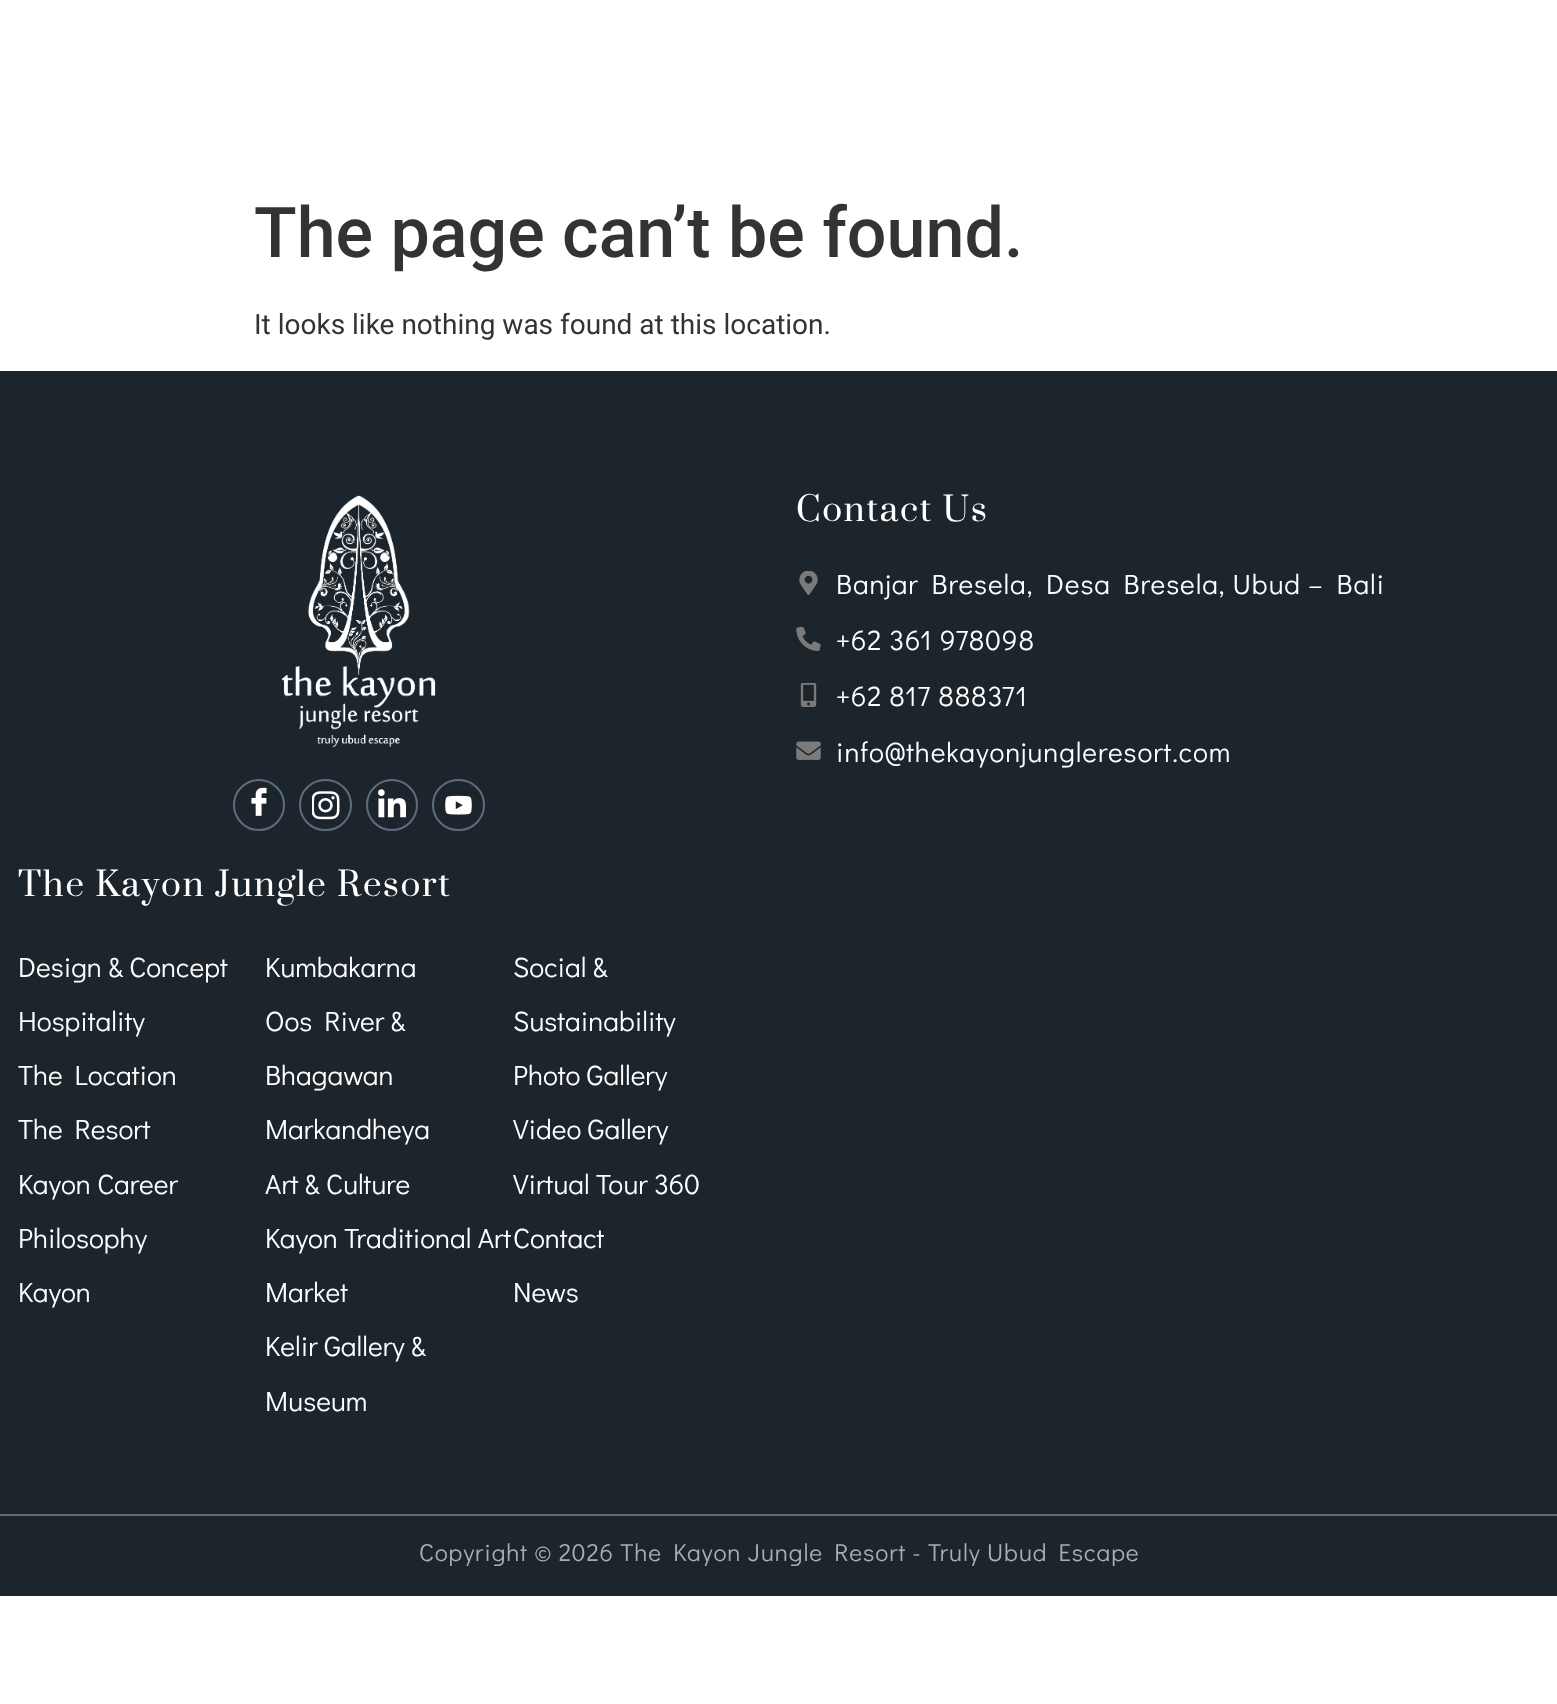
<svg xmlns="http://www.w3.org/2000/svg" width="1557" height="1704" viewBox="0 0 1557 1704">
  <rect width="100%" height="100%" fill="#ffffff"/>
  <text x="254" y="257" font-family="Roboto" font-size="70" font-weight="500" fill="#333333">The page can’t be found.</text>
  <text x="254" y="334" font-family="Roboto" font-size="28" fill="#333333">It looks like nothing was found at this location.</text>
  <rect x="0" y="371" width="1557" height="1143" fill="#1d252c"/>
  <image x="281" y="495" width="155" height="253" href="img1.png"/>
  <circle cx="259" cy="805" r="25" fill="none" stroke="#5e6d7e" stroke-width="2"/>
  <image x="251" y="787" width="16" height="29" href="img2.png"/>
  <rect x="300" y="780" width="51" height="50" rx="25" fill="none" stroke="#5e6d7e" stroke-width="2"/>
  <image x="312" y="791" width="28" height="29" href="img3.png"/>
  <circle cx="392" cy="805" r="25" fill="none" stroke="#5e6d7e" stroke-width="2"/>
  <image x="378" y="789" width="28" height="29" href="img4.png"/>
  <rect x="433" y="780" width="51" height="50" rx="25" fill="none" stroke="#5e6d7e" stroke-width="2"/>
  <image x="445" y="795" width="27" height="20" href="img5.png"/>
  <text x="796" y="521" font-family="Suranna" font-size="42" letter-spacing="1.75" fill="#ffffff">Contact Us</text>
  <image x="799" y="571" width="19" height="24" href="img6.png"/>
  <text x="836" y="594" font-family="Didact Gothic" font-size="28" letter-spacing="0.88" fill="#ffffff">Banjar Bresela, Desa Bresela, Ubud – Bali</text>
  <image x="796" y="627" width="25" height="24" href="img7.png"/>
  <text x="836" y="650" font-family="Didact Gothic" font-size="28" letter-spacing="0.88" fill="#ffffff">+62 361 978098</text>
  <image x="800" y="683" width="17" height="24" href="img8.png"/>
  <text x="836" y="706" font-family="Didact Gothic" font-size="28" letter-spacing="0.88" fill="#ffffff">+62 817 888371</text>
  <image x="796" y="741" width="25" height="19" href="img9.png"/>
  <text x="836" y="762" font-family="Didact Gothic" font-size="28" letter-spacing="0.88" fill="#ffffff">info@thekayonjungleresort.com</text>
  <text x="18" y="896" font-family="Suranna" font-size="42" letter-spacing="1.75" fill="#ffffff">The Kayon Jungle Resort</text>
  <text x="18" y="977" font-family="Didact Gothic" font-size="28" fill="#ffffff">Design &amp; Concept</text>
  <text x="18" y="1031" font-family="Didact Gothic" font-size="28" fill="#ffffff">Hospitality</text>
  <text x="18" y="1085" font-family="Didact Gothic" font-size="28" fill="#ffffff">The Location</text>
  <text x="18" y="1139" font-family="Didact Gothic" font-size="28" fill="#ffffff">The Resort</text>
  <text x="18" y="1194" font-family="Didact Gothic" font-size="28" fill="#ffffff">Kayon Career</text>
  <text x="18" y="1248" font-family="Didact Gothic" font-size="28" fill="#ffffff">Philosophy</text>
  <text x="18" y="1302" font-family="Didact Gothic" font-size="28" fill="#ffffff">Kayon</text>
  <text x="265" y="977" font-family="Didact Gothic" font-size="28" fill="#ffffff">Kumbakarna</text>
  <text x="265" y="1031" font-family="Didact Gothic" font-size="28" fill="#ffffff">Oos River &amp;</text>
  <text x="265" y="1085" font-family="Didact Gothic" font-size="28" fill="#ffffff">Bhagawan</text>
  <text x="265" y="1139" font-family="Didact Gothic" font-size="28" fill="#ffffff">Markandheya</text>
  <text x="265" y="1194" font-family="Didact Gothic" font-size="28" fill="#ffffff">Art &amp; Culture</text>
  <text x="265" y="1248" font-family="Didact Gothic" font-size="28" fill="#ffffff">Kayon Traditional Art</text>
  <text x="265" y="1302" font-family="Didact Gothic" font-size="28" fill="#ffffff">Market</text>
  <text x="265" y="1356" font-family="Didact Gothic" font-size="28" fill="#ffffff">Kelir Gallery &amp;</text>
  <text x="265" y="1411" font-family="Didact Gothic" font-size="28" fill="#ffffff">Museum</text>
  <text x="513" y="977" font-family="Didact Gothic" font-size="28" fill="#ffffff">Social &amp;</text>
  <text x="513" y="1031" font-family="Didact Gothic" font-size="28" fill="#ffffff">Sustainability</text>
  <text x="513" y="1085" font-family="Didact Gothic" font-size="28" fill="#ffffff">Photo Gallery</text>
  <text x="513" y="1139" font-family="Didact Gothic" font-size="28" fill="#ffffff">Video Gallery</text>
  <text x="513" y="1194" font-family="Didact Gothic" font-size="28" fill="#ffffff">Virtual Tour 360</text>
  <text x="513" y="1248" font-family="Didact Gothic" font-size="28" fill="#ffffff">Contact</text>
  <text x="513" y="1302" font-family="Didact Gothic" font-size="28" fill="#ffffff">News</text>
  <rect x="0" y="1516" width="1557" height="80" fill="#1d252c"/>
  <rect x="0" y="1514" width="1557" height="2" fill="#666a6f"/>
  <text x="419" y="1561" font-family="Didact Gothic" font-size="24.5" letter-spacing="0.88" fill="#adadad">Copyright © 2026 The Kayon Jungle Resort - Truly Ubud Escape</text>
</svg>
